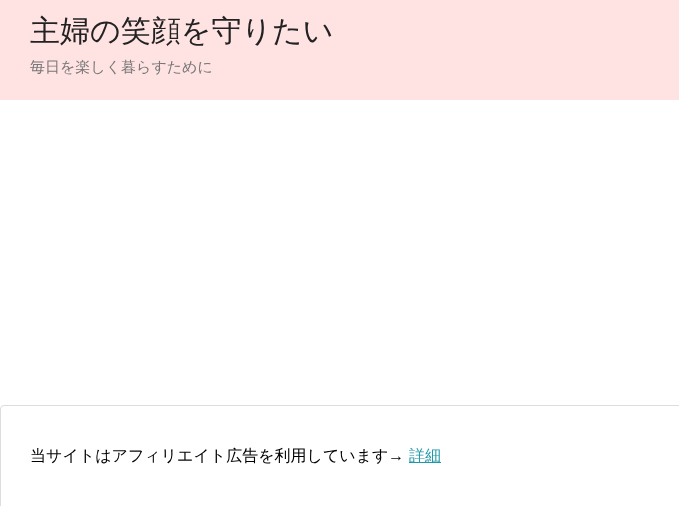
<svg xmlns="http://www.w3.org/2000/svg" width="679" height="506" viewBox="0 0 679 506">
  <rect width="100%" height="100%" fill="#ffffff"/>
  <rect x="0" y="0" width="679" height="100" fill="#ffe2e2"/>
  <text x="30" y="41" font-family="WenQuanYi Zen Hei" font-size="30" font-weight="500" fill="#222222">主婦の笑顔を守りたい</text>
  <text x="30" y="72" font-family="WenQuanYi Zen Hei" font-size="15" font-weight="500" fill="#777777">毎日を楽しく暮らすために</text>
  <rect x="0.5" y="405.5" width="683" height="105" rx="3.5" fill="none" stroke="#dddddd"/>
  <text x="30" y="461" font-family="WenQuanYi Zen Hei" font-size="16" font-weight="500" fill="#000000">当サイトはアフィリエイト広告を利用しています</text>
  <text x="388" y="461" font-family="Liberation Sans" font-size="16" fill="#000000">→</text>
  <rect x="409" y="462" width="32" height="1" fill="#2098a8"/>
  <text x="409" y="461" font-family="WenQuanYi Zen Hei" font-size="16" font-weight="500" fill="#2098a8">詳細</text>
</svg>
